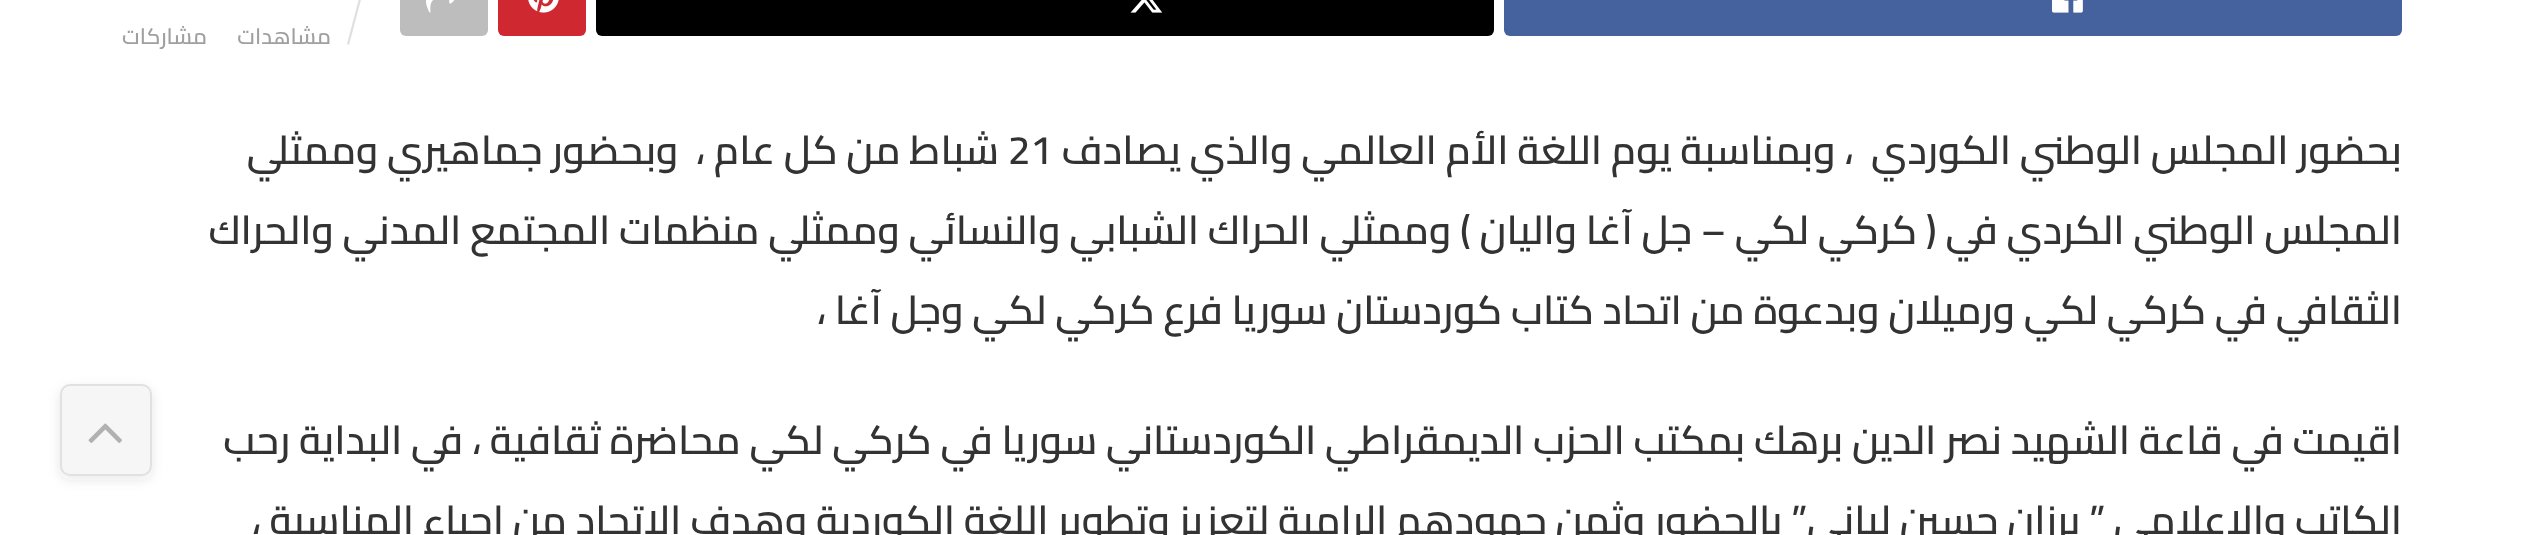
<svg xmlns="http://www.w3.org/2000/svg" width="2524" height="535" viewBox="0 0 2524 535">
  <defs>
    <clipPath id="clip1"><path d="M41 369H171V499H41ZM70 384H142C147.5 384 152 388.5 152 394V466C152 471.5 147.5 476 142 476H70C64.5 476 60 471.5 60 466V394C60 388.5 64.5 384 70 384Z" clip-rule="evenodd"/></clipPath>
    <filter id="blur1" x="-50%" y="-200%" width="200%" height="500%"><feGaussianBlur stdDeviation="6"/></filter>
  </defs>
  <rect width="100%" height="100%" fill="#ffffff"/>
  <rect x="1504" y="-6" width="898" height="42" rx="6" fill="#45629f"/>
  <image x="2052" y="0" width="31" height="13" href="img1.png"/>
  <rect x="596" y="-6" width="898" height="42" rx="6" fill="#000000"/>
  <image x="1130" y="0" width="33" height="13" href="img2.png"/>
  <rect x="498" y="-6" width="88" height="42" rx="6" fill="#cf2830"/>
  <image x="528" y="0" width="31" height="13" href="img3.png"/>
  <rect x="400" y="-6" width="88" height="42" rx="6" fill="#bdbdbd"/>
  <image x="426" y="0" width="29" height="13" href="img4.png"/>
  <path d="M370-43L372-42L349 45L347 44Z" fill="#e0e0e0"/>
  <text x="331" y="44" font-family="Cairo" font-size="22" font-weight="600" direction="rtl" fill="#a0a0a0">مشاهدات</text>
  <text x="207" y="44" font-family="Cairo" font-size="22" font-weight="600" direction="rtl" fill="#a0a0a0">مشاركات</text>
  <text x="2402" y="164" font-family="Cairo" font-size="40" font-weight="600" direction="rtl" fill="#333333" xml:space="preserve">بحضور المجلس الوطني الكوردي  ، وبمناسبة يوم اللغة الأم العالمي والذي يصادف</text>
  <text x="1008" y="164" font-family="Cairo" font-size="40" font-weight="600" fill="#333333">21</text>
  <text x="999" y="164" font-family="Cairo" font-size="40" font-weight="600" direction="rtl" fill="#333333" xml:space="preserve">شباط من كل عام ،  وبحضور جماهيري وممثلي</text>
  <text x="2402" y="244" font-family="Cairo" font-size="40" font-weight="600" direction="rtl" fill="#333333">المجلس الوطني الكردي في ( كركي لكي – جل آغا واليان ) وممثلي الحراك الشبابي والنسائي وممثلي منظمات المجتمع المدني والحراك</text>
  <text x="2402" y="324" font-family="Cairo" font-size="40" font-weight="600" direction="rtl" fill="#333333">الثقافي في كركي لكي ورميلان وبدعوة من اتحاد كتاب كوردستان سوريا فرع كركي لكي وجل آغا ،</text>
  <text x="2402" y="454" font-family="Cairo" font-size="40" font-weight="600" direction="rtl" fill="#333333">اقيمت في قاعة الشهيد نصر الدين برهك بمكتب الحزب الديمقراطي الكوردستاني سوريا في كركي لكي محاضرة ثقافية ، في البداية رحب</text>
  <text x="2402" y="534" font-family="Cairo" font-size="40" font-weight="600" direction="rtl" fill="#333333">الكاتب والاعلامي ” برزان حسين لياني” بالحضور وثمن جهودهم الرامية لتعزيز وتطوير اللغة الكوردية وهدف الاتحاد من إحياء المناسبة ،</text>
  <g clip-path="url(#clip1)">
    <rect x="60" y="388" width="92" height="92" rx="10" fill="#333333" fill-opacity="0.1" filter="url(#blur1)"/>
  </g>
  <rect x="60" y="384" width="92" height="92" rx="10" fill="#c4c4c4" fill-opacity="0.15"/>
  <rect x="61" y="385" width="90" height="90" rx="9" fill="none" stroke="#333333" stroke-opacity="0.11" stroke-width="2"/>
  <image x="88" y="423" width="34" height="20" href="img5.png"/>
</svg>
